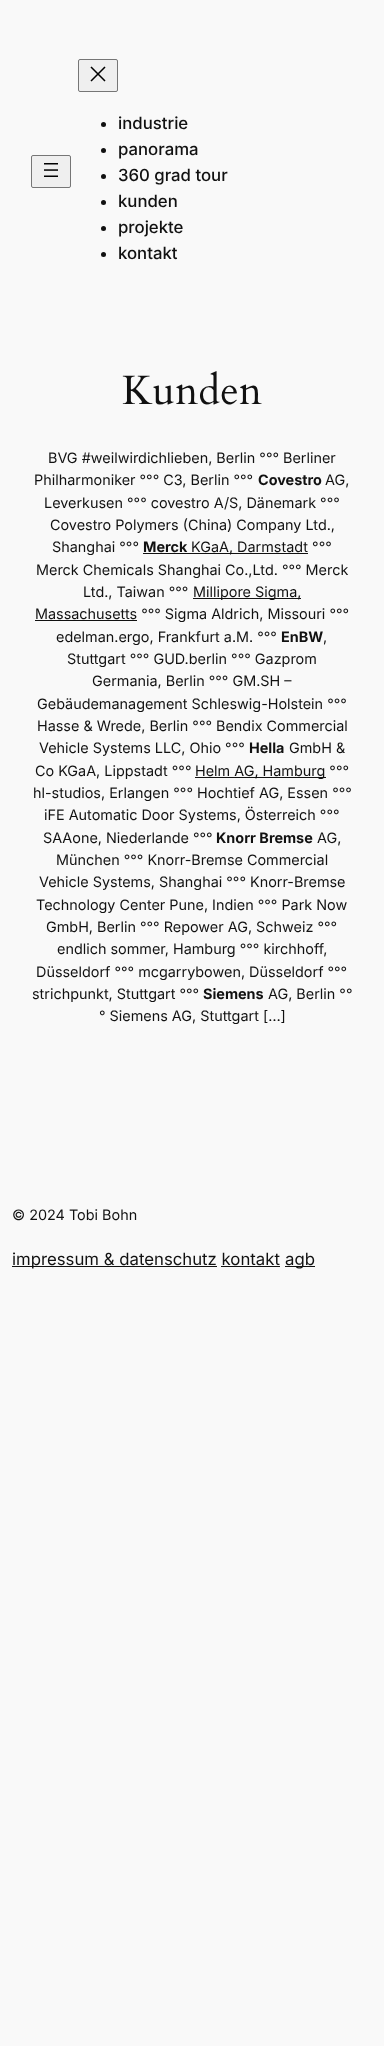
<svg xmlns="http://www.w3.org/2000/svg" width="384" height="2046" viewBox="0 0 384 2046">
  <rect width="100%" height="100%" fill="#f9f9f9"/>
  <rect x="31.5" y="155.5" width="39" height="32" rx="1.5" fill="#efefef" stroke="#767676"/>
  <image x="44" y="163" width="14" height="14" href="img1.png"/>
  <rect x="78.5" y="59.5" width="39" height="32" rx="1.5" fill="#efefef" stroke="#767676"/>
  <image x="90" y="66" width="16" height="16" href="img2.png"/>
  <circle cx="103.5" cy="124.5" r="2.5" fill="#111111"/>
  <text x="118" y="129" font-family="Inter" font-size="16.75" font-weight="500" fill="#111111">industrie</text>
  <circle cx="103.5" cy="150.5" r="2.5" fill="#111111"/>
  <text x="118" y="155" font-family="Inter" font-size="16.75" font-weight="500" fill="#111111">panorama</text>
  <circle cx="103.5" cy="176.5" r="2.5" fill="#111111"/>
  <text x="118" y="181" font-family="Inter" font-size="16.75" font-weight="500" fill="#111111">360 grad tour</text>
  <circle cx="103.5" cy="202.5" r="2.5" fill="#111111"/>
  <text x="118" y="207" font-family="Inter" font-size="16.75" font-weight="500" fill="#111111">kunden</text>
  <circle cx="103.5" cy="228.5" r="2.5" fill="#111111"/>
  <text x="118" y="233" font-family="Inter" font-size="16.75" font-weight="500" fill="#111111">projekte</text>
  <circle cx="103.5" cy="254.5" r="2.5" fill="#111111"/>
  <text x="118" y="259" font-family="Inter" font-size="16.75" font-weight="500" fill="#111111">kontakt</text>
  <text x="122" y="404" font-family="Cardo" font-size="41" fill="#111111">Kunden</text>
  <text x="48" y="463" font-family="Inter" font-size="14.4" fill="#111111">BVG #weilwirdichlieben, Berlin °°° Berliner</text>
  <text x="34" y="485" font-family="Inter" font-size="14.4" fill="#111111">Philharmoniker °°° C3, Berlin °°°</text>
  <text x="258" y="485" font-family="Inter" font-size="14.4" font-weight="bold" fill="#111111">Covestro</text>
  <text x="325" y="485" font-family="Inter" font-size="14.4" fill="#111111">AG,</text>
  <text x="44" y="508" font-family="Inter" font-size="14.4" fill="#111111">Leverkusen °°° covestro A/S, Dänemark °°°</text>
  <text x="50" y="530" font-family="Inter" font-size="14.4" fill="#111111">Covestro Polymers (China) Company Ltd.,</text>
  <text x="52" y="552" font-family="Inter" font-size="14.4" fill="#111111">Shanghai °°°</text>
  <text x="143" y="552" font-family="Inter" font-size="14.4" font-weight="bold" fill="#111111">Merck</text>
  <rect x="143" y="553" width="165" height="1" fill="#111111"/>
  <text x="191" y="552" font-family="Inter" font-size="14.4" fill="#111111">KGaA, Darmstadt °°°</text>
  <text x="36" y="575" font-family="Inter" font-size="14.4" fill="#111111">Merck Chemicals Shanghai Co.,Ltd. °°° Merck</text>
  <text x="83" y="597" font-family="Inter" font-size="14.4" fill="#111111">Ltd., Taiwan °°°</text>
  <rect x="193" y="598" width="108" height="1" fill="#111111"/>
  <text x="193" y="597" font-family="Inter" font-size="14.4" fill="#111111">Millipore Sigma,</text>
  <rect x="35" y="620" width="102" height="1" fill="#111111"/>
  <text x="35" y="619" font-family="Inter" font-size="14.4" fill="#111111">Massachusetts °°° Sigma Aldrich, Missouri °°°</text>
  <text x="56" y="642" font-family="Inter" font-size="14.4" fill="#111111">edelman.ergo, Frankfurt a.M. °°°</text>
  <text x="281" y="642" font-family="Inter" font-size="14.4" font-weight="bold" fill="#111111">EnBW</text>
  <text x="323" y="642" font-family="Inter" font-size="14.4" fill="#111111">,</text>
  <text x="67" y="664" font-family="Inter" font-size="14.4" fill="#111111">Stuttgart °°° GUD.berlin °°° Gazprom</text>
  <text x="92" y="686" font-family="Inter" font-size="14.4" fill="#111111">Germania, Berlin °°° GM.SH –</text>
  <text x="37" y="709" font-family="Inter" font-size="14.4" fill="#111111">Gebäudemanagement Schleswig-Holstein °°°</text>
  <text x="37" y="731" font-family="Inter" font-size="14.4" fill="#111111">Hasse &amp; Wrede, Berlin °°° Bendix Commercial</text>
  <text x="39" y="753" font-family="Inter" font-size="14.4" fill="#111111">Vehicle Systems LLC, Ohio °°°</text>
  <text x="249" y="753" font-family="Inter" font-size="14.4" font-weight="bold" fill="#111111">Hella</text>
  <text x="289" y="753" font-family="Inter" font-size="14.4" fill="#111111">GmbH &amp;</text>
  <text x="35" y="776" font-family="Inter" font-size="14.4" fill="#111111">Co KGaA, Lippstadt °°°</text>
  <rect x="195" y="777" width="131" height="1" fill="#111111"/>
  <text x="195" y="776" font-family="Inter" font-size="14.4" fill="#111111">Helm AG, Hamburg °°°</text>
  <text x="33" y="798" font-family="Inter" font-size="14.4" fill="#111111">hl-studios, Erlangen °°° Hochtief AG, Essen °°°</text>
  <text x="44" y="820" font-family="Inter" font-size="14.4" fill="#111111">iFE Automatic Door Systems, Österreich °°°</text>
  <text x="43" y="843" font-family="Inter" font-size="14.4" fill="#111111">SAAone, Niederlande °°°</text>
  <text x="216" y="843" font-family="Inter" font-size="14.4" font-weight="bold" fill="#111111">Knorr Bremse</text>
  <text x="317" y="843" font-family="Inter" font-size="14.4" fill="#111111">AG,</text>
  <text x="56" y="865" font-family="Inter" font-size="14.4" fill="#111111">München °°° Knorr-Bremse Commercial</text>
  <text x="39" y="887" font-family="Inter" font-size="14.4" fill="#111111">Vehicle Systems, Shanghai °°° Knorr-Bremse</text>
  <text x="36" y="910" font-family="Inter" font-size="14.4" fill="#111111">Technology Center Pune, Indien °°° Park Now</text>
  <text x="46" y="932" font-family="Inter" font-size="14.4" fill="#111111">GmbH, Berlin °°° Repower AG, Schweiz °°°</text>
  <text x="57" y="954" font-family="Inter" font-size="14.4" fill="#111111">endlich sommer, Hamburg °°° kirchhoff,</text>
  <text x="36" y="977" font-family="Inter" font-size="14.4" fill="#111111">Düsseldorf °°° mcgarrybowen, Düsseldorf °°°</text>
  <text x="32" y="999" font-family="Inter" font-size="14.4" fill="#111111">strichpunkt, Stuttgart °°°</text>
  <text x="203" y="999" font-family="Inter" font-size="14.4" font-weight="bold" fill="#111111">Siemens</text>
  <text x="268" y="999" font-family="Inter" font-size="14.4" fill="#111111">AG, Berlin °°</text>
  <text x="99" y="1021" font-family="Inter" font-size="14.4" fill="#111111">° Siemens AG, Stuttgart […]</text>
  <text x="12" y="1220" font-family="Inter" font-size="14.4" fill="#111111">© 2024 Tobi Bohn</text>
  <rect x="12" y="1266" width="205" height="1" fill="#111111"/>
  <text x="12" y="1265" font-family="Inter" font-size="16.75" fill="#111111">impressum &amp; datenschutz kontakt</text>
  <rect x="285" y="1266" width="30" height="1" fill="#111111"/>
  <text x="285" y="1265" font-family="Inter" font-size="16.75" fill="#111111">agb</text>
  <rect x="221" y="1266" width="59" height="1" fill="#111111"/>
</svg>
